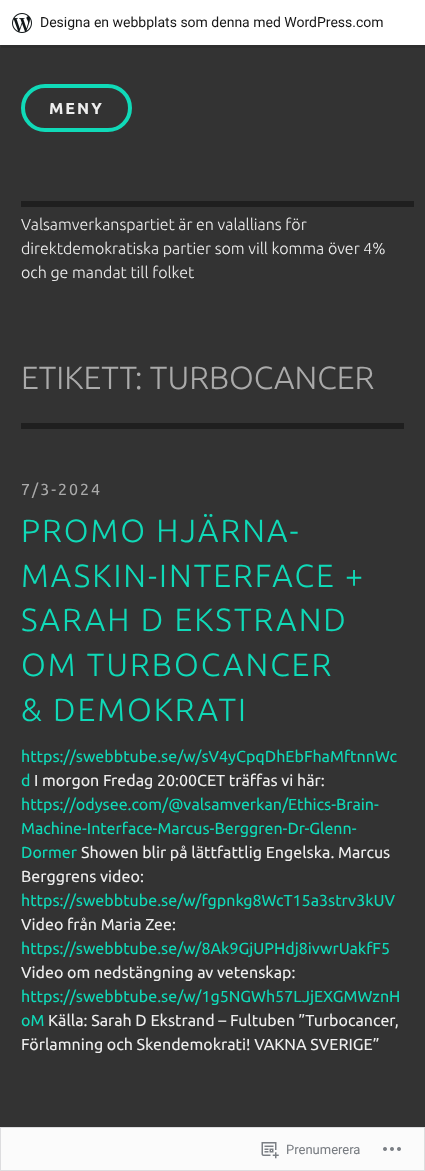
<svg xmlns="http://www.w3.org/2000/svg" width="425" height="1171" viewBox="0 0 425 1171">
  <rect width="100%" height="100%" fill="#333333"/>
  <path d="M1 45V48H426V3H425V45Z" fill="#2e2e2e"/>
  <rect x="0" y="0" width="425" height="45" fill="#ffffff"/>
  <image x="12" y="13" width="20" height="20" href="img1.png"/>
  <text x="40" y="27" font-family="Roboto" font-size="14" fill="#171717">Designa en webbplats som denna med WordPress.com</text>
  <rect x="23" y="86" width="107" height="44" rx="22" fill="none" stroke="#10dab8" stroke-width="4"/>
  <text x="49" y="114" font-family="Ubuntu" font-size="16" font-weight="bold" letter-spacing="2" fill="#eeeeee">MENY</text>
  <rect x="21" y="201" width="393" height="6" fill="#1f1f1f"/>
  <text x="21" y="230" font-family="Ubuntu" font-size="16" font-weight="300" fill="#eeeeee">Valsamverkanspartiet är en valallians för</text>
  <text x="21" y="254" font-family="Ubuntu" font-size="16" font-weight="300" fill="#eeeeee">direktdemokratiska partier som vill komma över 4%</text>
  <text x="21" y="278" font-family="Ubuntu" font-size="16" font-weight="300" fill="#eeeeee">och ge mandat till folket</text>
  <text x="21" y="389" font-family="Ubuntu" font-size="32" font-weight="300" fill="#aaaaaa">ETIKETT: TURBOCANCER</text>
  <rect x="21" y="423" width="383" height="6" fill="#1f1f1f"/>
  <text x="21" y="495" font-family="Ubuntu" font-size="16" letter-spacing="2" fill="#aaaaaa">7/3-2024</text>
  <text x="21" y="542" font-family="Ubuntu" font-size="32" font-weight="300" letter-spacing="2" fill="#10dab8">PROMO HJÄRNA-</text>
  <text x="21" y="587" font-family="Ubuntu" font-size="32" font-weight="300" letter-spacing="2" fill="#10dab8">MASKIN-INTERFACE +</text>
  <text x="21" y="631" font-family="Ubuntu" font-size="32" font-weight="300" letter-spacing="2" fill="#10dab8">SARAH D EKSTRAND</text>
  <text x="21" y="676" font-family="Ubuntu" font-size="32" font-weight="300" letter-spacing="2" fill="#10dab8">OM TURBOCANCER</text>
  <text x="21" y="721" font-family="Ubuntu" font-size="32" font-weight="300" letter-spacing="2" fill="#10dab8">&amp; DEMOKRATI</text>
  <text x="21" y="762" font-family="Ubuntu" font-size="16" fill="#10dab8">https://swebbtube.se/w/sV4yCpqDhEbFhaMftnnWc</text>
  <text x="21" y="786" font-family="Ubuntu" font-size="16" fill="#10dab8">d</text>
  <text x="34" y="786" font-family="Ubuntu" font-size="16" fill="#eeeeee">I morgon Fredag 20:00CET träffas vi här:</text>
  <text x="21" y="810" font-family="Ubuntu" font-size="16" fill="#10dab8">https://odysee.com/@valsamverkan/Ethics-Brain-</text>
  <text x="21" y="834" font-family="Ubuntu" font-size="16" fill="#10dab8">Machine-Interface-Marcus-Berggren-Dr-Glenn-</text>
  <text x="21" y="858" font-family="Ubuntu" font-size="16" fill="#10dab8">Dormer</text>
  <text x="81" y="858" font-family="Ubuntu" font-size="16" fill="#eeeeee">Showen blir på lättfattlig Engelska. Marcus</text>
  <text x="21" y="882" font-family="Ubuntu" font-size="16" fill="#eeeeee">Berggrens video:</text>
  <text x="21" y="906" font-family="Ubuntu" font-size="16" fill="#10dab8">https://swebbtube.se/w/fgpnkg8WcT15a3strv3kUV</text>
  <text x="21" y="930" font-family="Ubuntu" font-size="16" fill="#eeeeee">Video från Maria Zee:</text>
  <text x="21" y="954" font-family="Ubuntu" font-size="16" fill="#10dab8">https://swebbtube.se/w/8Ak9GjUPHdj8ivwrUakfF5</text>
  <text x="21" y="978" font-family="Ubuntu" font-size="16" fill="#eeeeee">Video om nedstängning av vetenskap:</text>
  <text x="21" y="1002" font-family="Ubuntu" font-size="16" fill="#10dab8">https://swebbtube.se/w/1g5NGWh57LJjEXGMWznH</text>
  <text x="21" y="1026" font-family="Ubuntu" font-size="16" fill="#10dab8">oM</text>
  <text x="48" y="1026" font-family="Ubuntu" font-size="16" fill="#eeeeee">Källa: Sarah D Ekstrand – Fultuben ”Turbocancer,</text>
  <text x="21" y="1050" font-family="Ubuntu" font-size="16" fill="#eeeeee">Förlamning och Skendemokrati! VAKNA SVERIGE”</text>
  <rect x="0.5" y="1127.5" width="424" height="43" fill="#fbfbfb" stroke="#dddddf"/>
  <image x="261" y="1142" width="18" height="17" href="img2.png"/>
  <text x="286" y="1154" font-family="Roboto" font-size="13" fill="#777b80">Prenumerera</text>
  <image x="383" y="1147" width="18" height="4" href="img3.png"/>
</svg>
